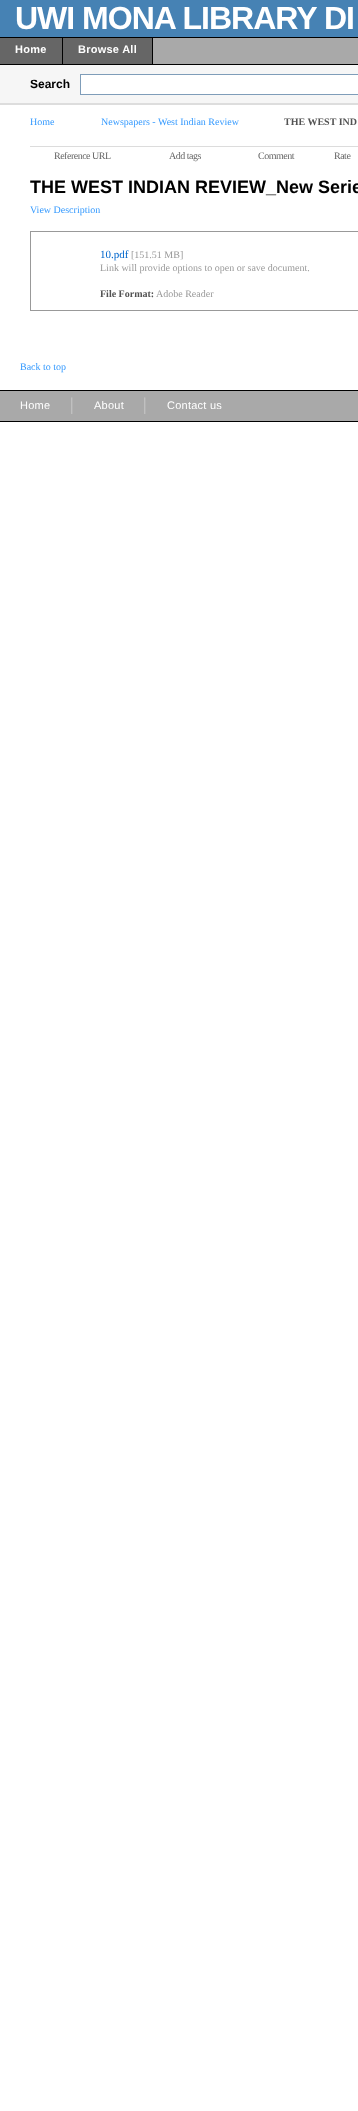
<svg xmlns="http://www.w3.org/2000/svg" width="358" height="2111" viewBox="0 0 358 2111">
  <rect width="100%" height="100%" fill="#ffffff"/>
  <rect x="0" y="0" width="358" height="37" fill="#4682b4"/>
  <text x="15" y="29" font-family="Liberation Sans" font-size="32" font-weight="bold" letter-spacing="-1" fill="#ffffff">UWI MONA LIBRARY DI</text>
  <rect x="153" y="38" width="205" height="26" fill="#a9a9a9"/>
  <rect x="0" y="37" width="358" height="1" fill="#000000"/>
  <rect x="0" y="64" width="358" height="1" fill="#000000"/>
  <rect x="0" y="38" width="62" height="26" fill="#666666"/>
  <rect x="62" y="38" width="1" height="26" fill="#000000"/>
  <text x="15" y="53" font-family="Liberation Sans" font-size="11" font-weight="bold" letter-spacing="0.25" fill="#ffffff">Home</text>
  <rect x="63" y="38" width="89" height="26" fill="#666666"/>
  <rect x="152" y="38" width="1" height="26" fill="#000000"/>
  <text x="78" y="53" font-family="Liberation Sans" font-size="11" font-weight="bold" letter-spacing="0.25" fill="#ffffff">Browse All</text>
  <rect x="0" y="65" width="358" height="38" fill="#f6f6f6"/>
  <rect x="0" y="103" width="358" height="2" fill="#dddddd"/>
  <text x="30" y="88" font-family="Liberation Sans" font-size="12" font-weight="bold" fill="#000000">Search</text>
  <rect x="80.5" y="74.5" width="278" height="20" fill="#ffffff" stroke="#7f9db9"/>
  <text x="30" y="125" font-family="Liberation Serif" font-size="10" fill="#3399ff">Home</text>
  <text x="101" y="125" font-family="Liberation Serif" font-size="10" fill="#3399ff">Newspapers - West Indian Review</text>
  <text x="284" y="125" font-family="Liberation Serif" font-size="10" font-weight="bold" fill="#525252">THE WEST IND</text>
  <rect x="30" y="146" width="328" height="1" fill="#dcdcdc"/>
  <text x="54" y="159" font-family="Liberation Serif" font-size="10" letter-spacing="-0.5" fill="#666666">Reference URL</text>
  <text x="169" y="159" font-family="Liberation Serif" font-size="10" letter-spacing="-0.5" fill="#666666">Add tags</text>
  <text x="258" y="159" font-family="Liberation Serif" font-size="10" letter-spacing="-0.5" fill="#666666">Comment</text>
  <text x="334" y="159" font-family="Liberation Serif" font-size="10" letter-spacing="-0.5" fill="#666666">Rate</text>
  <text x="30" y="193" font-family="Liberation Sans" font-size="18" font-weight="bold" fill="#000000">THE WEST INDIAN REVIEW_New Serie</text>
  <text x="30" y="213" font-family="Liberation Serif" font-size="10" fill="#3399ff">View Description</text>
  <rect x="30.5" y="231.5" width="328" height="79" fill="none" stroke="#999999"/>
  <text x="100" y="258" font-family="Liberation Serif" font-size="11" fill="#0066cc">10.pdf</text>
  <text x="131" y="258" font-family="Liberation Serif" font-size="10" fill="#999999">[151.51 MB]</text>
  <text x="100" y="271" font-family="Liberation Serif" font-size="10" fill="#999999">Link will provide options to open or save document.</text>
  <text x="100" y="297" font-family="Liberation Serif" font-size="10" font-weight="bold" fill="#525252">File Format:</text>
  <text x="156" y="297" font-family="Liberation Serif" font-size="10" fill="#999999">Adobe Reader</text>
  <text x="20" y="370" font-family="Liberation Serif" font-size="10" fill="#3399ff">Back to top</text>
  <rect x="0" y="391" width="358" height="30" fill="#a9a9a9"/>
  <rect x="0" y="390" width="358" height="1" fill="#000000"/>
  <rect x="0" y="421" width="358" height="1" fill="#000000"/>
  <text x="20" y="409" font-family="Liberation Sans" font-size="11" letter-spacing="0.25" fill="#ffffff">Home</text>
  <text x="70" y="410" font-family="Liberation Serif" font-size="18" fill="#cccccc">|</text>
  <text x="94" y="409" font-family="Liberation Sans" font-size="11" letter-spacing="0.25" fill="#ffffff">About</text>
  <text x="143" y="410" font-family="Liberation Serif" font-size="18" fill="#cccccc">|</text>
  <text x="167" y="409" font-family="Liberation Sans" font-size="11" letter-spacing="0.25" fill="#ffffff">Contact us</text>
</svg>
